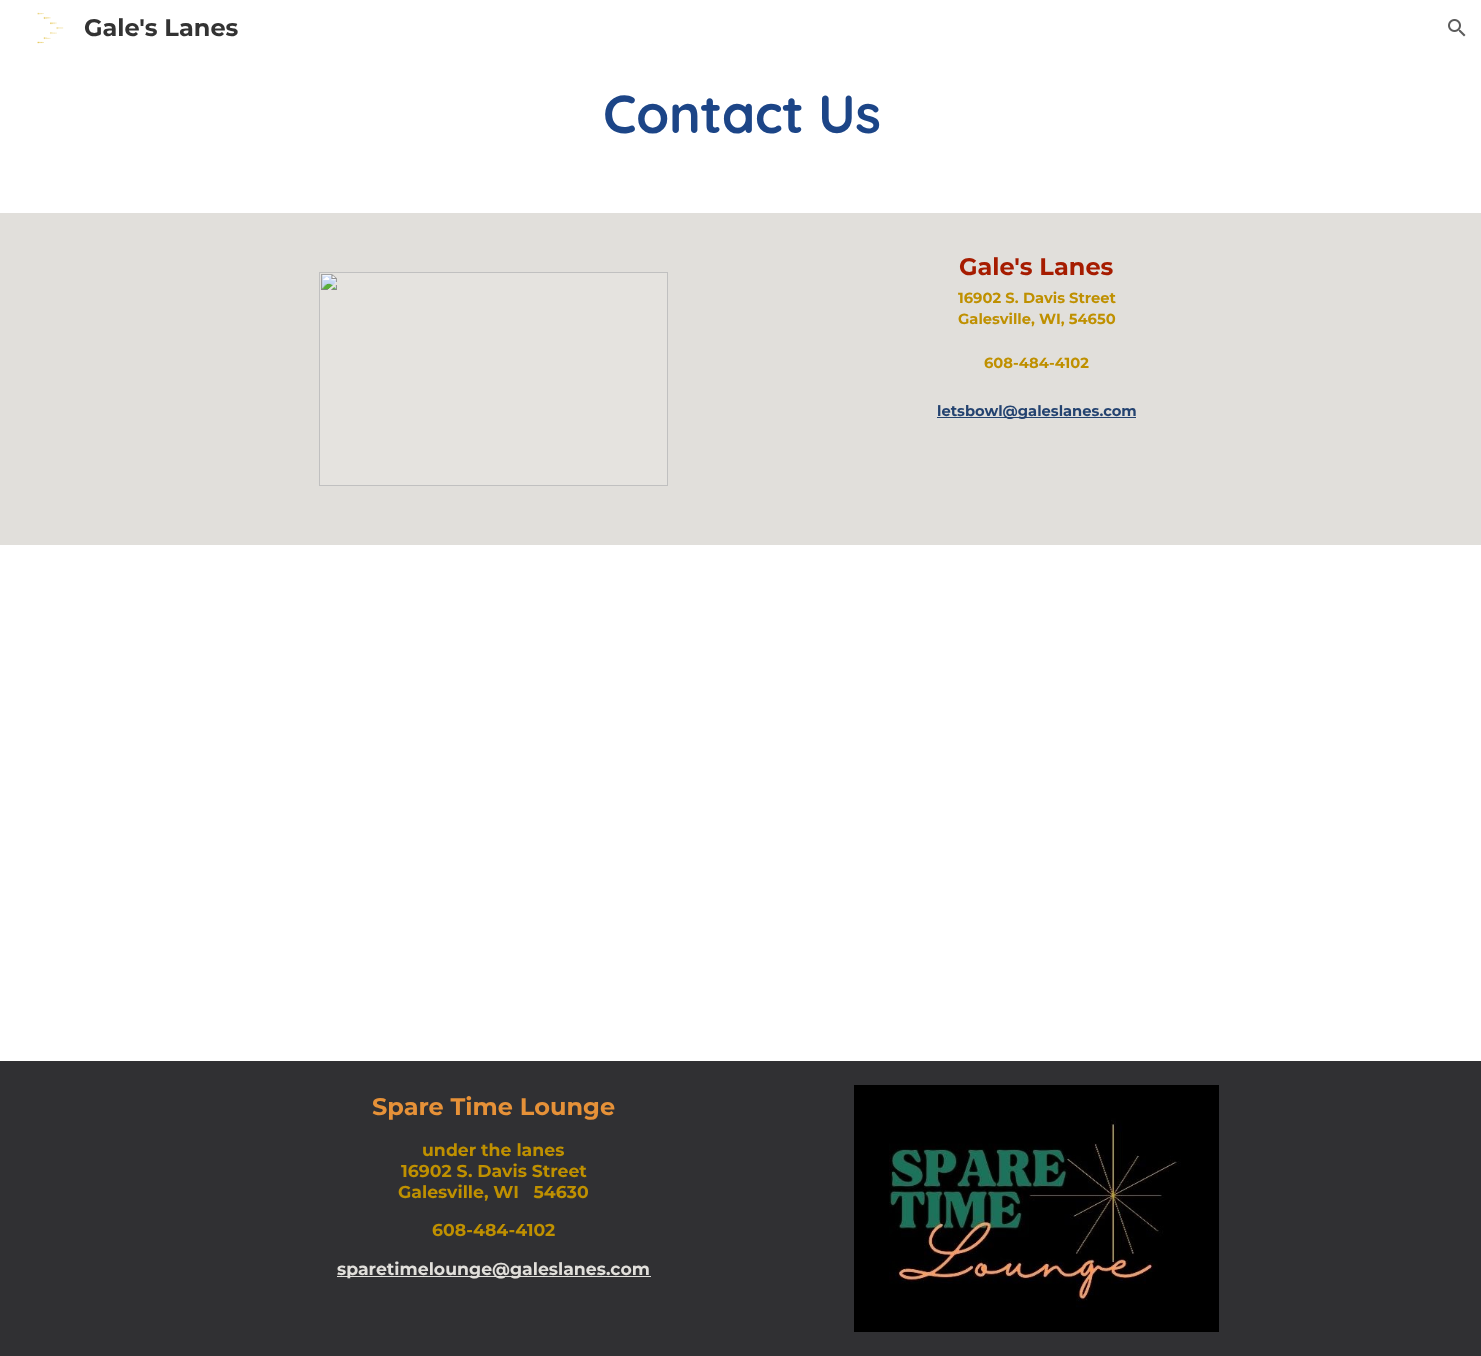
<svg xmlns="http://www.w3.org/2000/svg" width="1481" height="1356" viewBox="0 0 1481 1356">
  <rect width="100%" height="100%" fill="#ffffff"/>
  <image x="37" y="12" width="27" height="32" href="img1.png"/>
  <text x="84" y="36" font-family="Montserrat" font-size="24" font-weight="bold" fill="#333333">Gale's Lanes</text>
  <image x="1448" y="19" width="18" height="18" href="img2.png"/>
  <text x="603" y="133" font-family="Quicksand" font-size="53.5" font-weight="bold" letter-spacing="-0.5" fill="#1c4587">Contact Us</text>
  <rect x="0" y="213" width="1481" height="332" fill="#e1dfdb"/>
  <image x="319" y="272" width="349" height="214" href="img3.png"/>
  <text x="959" y="275" font-family="Montserrat" font-size="24" font-weight="bold" fill="#a61c00">Gale's Lanes</text>
  <text x="958" y="303" font-family="Montserrat" font-size="14.7" font-weight="bold" fill="#bf9000">16902 S. Davis Street</text>
  <text x="958" y="324" font-family="Montserrat" font-size="14.7" font-weight="bold" fill="#bf9000">Galesville, WI, 54650</text>
  <text x="984" y="368" font-family="Montserrat" font-size="14.7" font-weight="bold" fill="#bf9000">608-484-4102</text>
  <rect x="937" y="417" width="199" height="1" fill="#244370"/>
  <text x="937" y="416" font-family="Montserrat" font-size="14.7" font-weight="bold" fill="#244370">letsbowl@galeslanes.com</text>
  <rect x="0" y="1061" width="1481" height="295" fill="#303033"/>
  <text x="372" y="1115" font-family="Montserrat" font-size="24" font-weight="bold" fill="#e69138">Spare Time Lounge</text>
  <text x="422" y="1156" font-family="Montserrat" font-size="17.3" font-weight="bold" fill="#bf9000">under the lanes</text>
  <text x="401" y="1177" font-family="Montserrat" font-size="17.3" font-weight="bold" fill="#bf9000">16902 S. Davis Street</text>
  <text x="398" y="1198" font-family="Montserrat" font-size="17.3" font-weight="bold" fill="#bf9000" xml:space="preserve">Galesville, WI   54630</text>
  <text x="432" y="1236" font-family="Montserrat" font-size="17.3" font-weight="bold" fill="#bf9000">608-484-4102</text>
  <rect x="337" y="1276" width="314" height="1" fill="#e1dfdb"/>
  <text x="337" y="1275" font-family="Montserrat" font-size="17.3" font-weight="bold" fill="#e1dfdb">sparetimelounge@galeslanes.com</text>
  <image x="854" y="1085" width="365" height="247" href="img4.png"/>
</svg>
